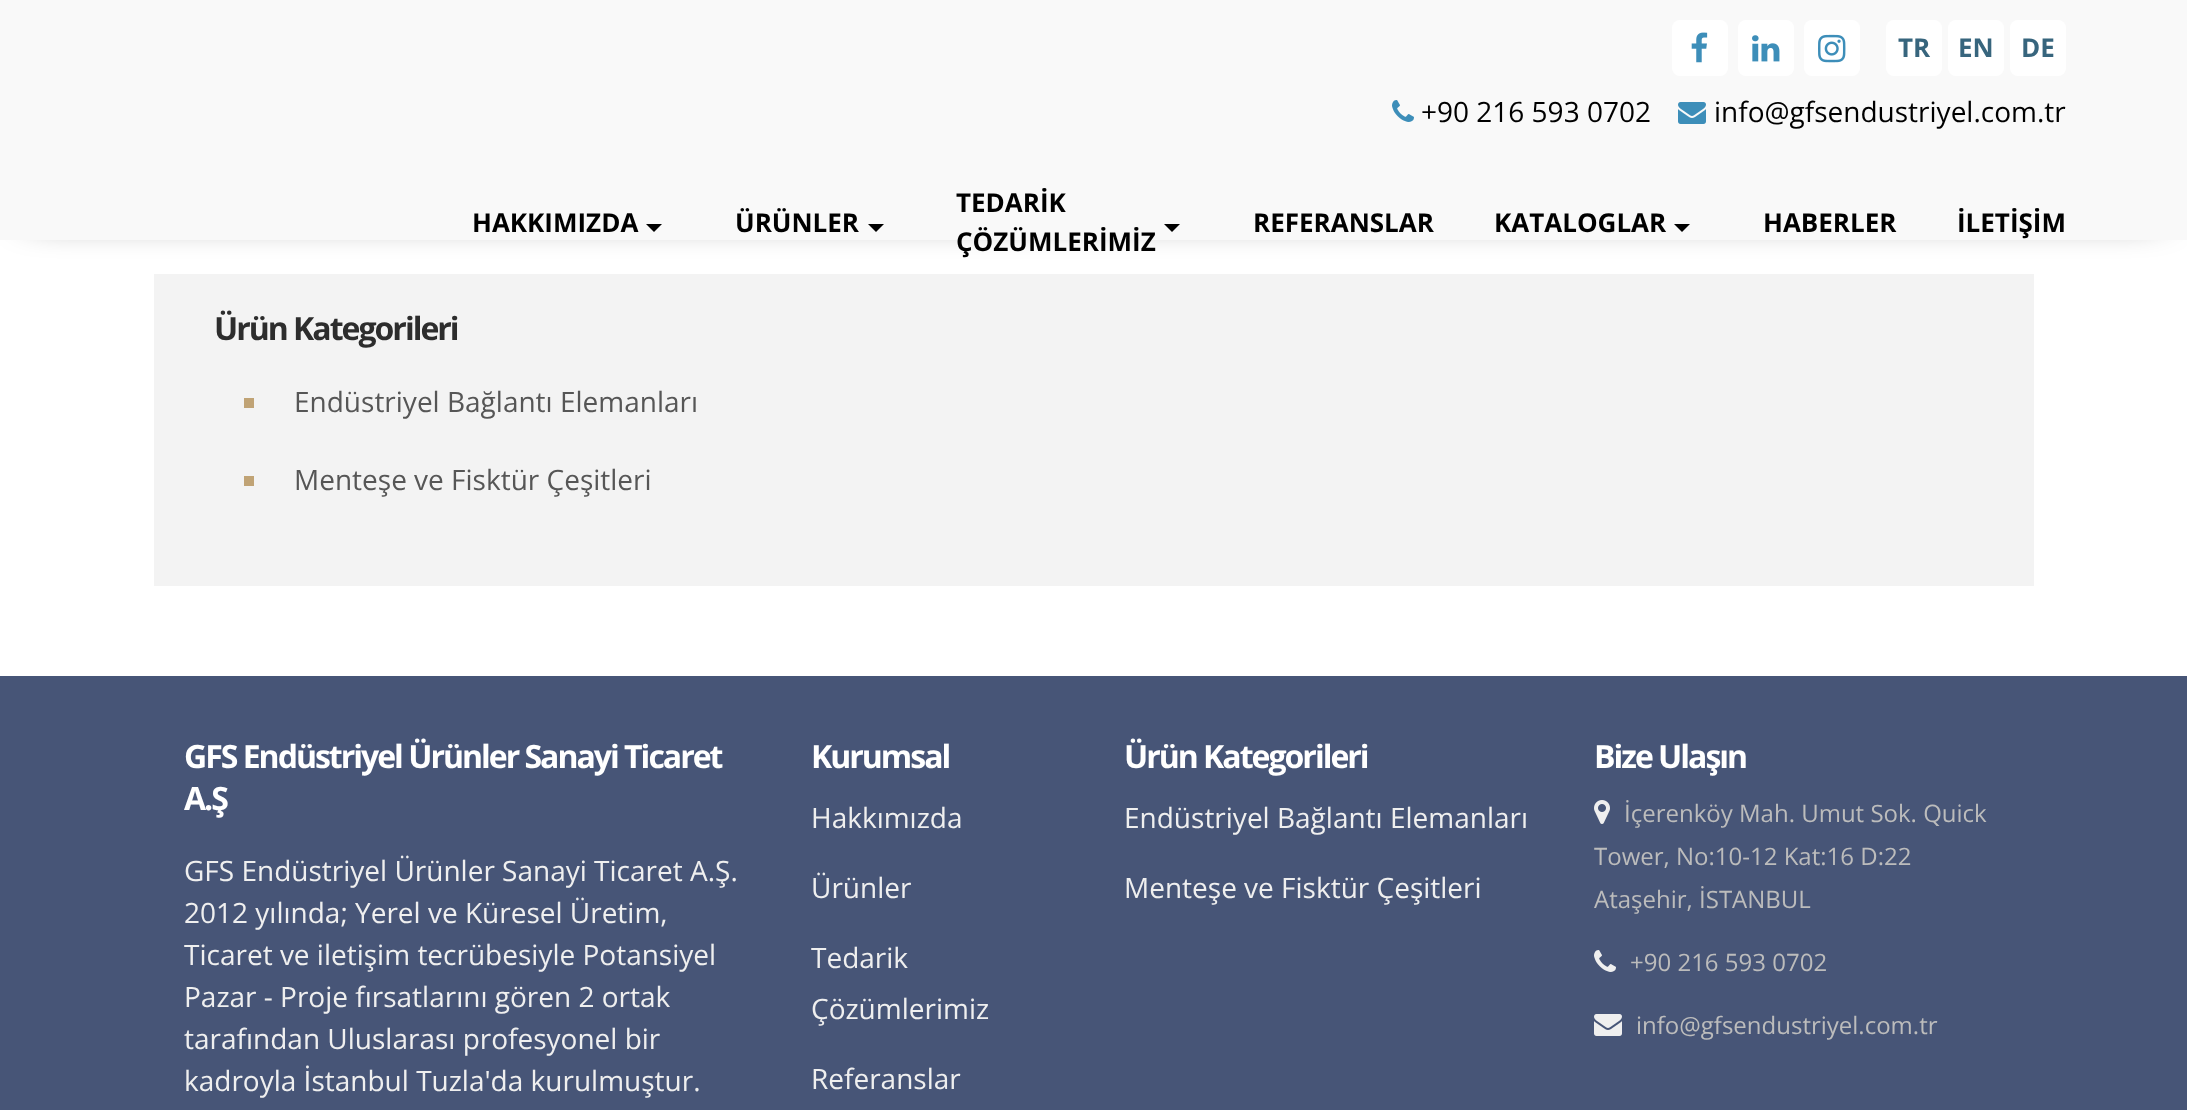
<svg xmlns="http://www.w3.org/2000/svg" width="2187" height="1110" viewBox="0 0 2187 1110">
  <defs>
    <filter id="blur1" x="-50%" y="-200%" width="200%" height="500%"><feGaussianBlur stdDeviation="20"/></filter>
  </defs>
  <rect width="100%" height="100%" fill="#ffffff"/>
  <rect x="30" y="30" width="2128" height="180" fill="#000000" filter="url(#blur1)"/>
  <rect x="0" y="0" width="2187" height="240" fill="#f9f9f9"/>
  <rect x="1672" y="20" width="56" height="56" rx="8" fill="#ffffff"/>
  <image x="1691" y="32" width="17" height="31" href="img1.png"/>
  <rect x="1738" y="20" width="56" height="56" rx="8" fill="#ffffff"/>
  <image x="1752" y="35" width="28" height="27" href="img2.png"/>
  <rect x="1804" y="20" width="56" height="56" rx="8" fill="#ffffff"/>
  <image x="1818" y="34" width="28" height="29" href="img3.png"/>
  <rect x="1886" y="20" width="56" height="56" rx="8" fill="#ffffff"/>
  <text x="1898" y="57" font-family="Open Sans" font-size="26" font-weight="bold" fill="#37657d">TR</text>
  <rect x="1948" y="20" width="56" height="56" rx="8" fill="#ffffff"/>
  <text x="1958" y="57" font-family="Open Sans" font-size="26" font-weight="bold" fill="#37657d">EN</text>
  <rect x="2010" y="20" width="56" height="56" rx="8" fill="#ffffff"/>
  <text x="2021" y="57" font-family="Open Sans" font-size="26" font-weight="bold" fill="#37657d">DE</text>
  <image x="1392" y="100" width="22" height="22" href="img4.png"/>
  <text x="1421" y="122" font-family="Open Sans" font-size="28" fill="#000000">+90 216 593 0702</text>
  <image x="1678" y="102" width="28" height="22" href="img5.png"/>
  <text x="1714" y="122" font-family="Open Sans" font-size="28" fill="#000000">info@gfsendustriyel.com.tr</text>
  <text x="472" y="232" font-family="Open Sans" font-size="26" font-weight="bold" fill="#000000">HAKKIMIZDA</text>
  <path d="M646 224H662L654 232Z" fill="#000000"/>
  <text x="735" y="232" font-family="Open Sans" font-size="26" font-weight="bold" fill="#000000">ÜRÜNLER</text>
  <path d="M868 224H884L876 232Z" fill="#000000"/>
  <text x="956" y="212" font-family="Open Sans" font-size="26" font-weight="bold" fill="#000000">TEDARİK</text>
  <text x="956" y="251" font-family="Open Sans" font-size="26" font-weight="bold" fill="#000000">ÇÖZÜMLERİMİZ</text>
  <path d="M1164 224H1180L1172 232Z" fill="#000000"/>
  <text x="1253" y="232" font-family="Open Sans" font-size="26" font-weight="bold" fill="#000000">REFERANSLAR</text>
  <text x="1494" y="232" font-family="Open Sans" font-size="26" font-weight="bold" fill="#000000">KATALOGLAR</text>
  <path d="M1674 224H1690L1682 232Z" fill="#000000"/>
  <text x="1763" y="232" font-family="Open Sans" font-size="26" font-weight="bold" fill="#000000">HABERLER</text>
  <text x="1957" y="232" font-family="Open Sans" font-size="26" font-weight="bold" fill="#000000">İLETİŞİM</text>
  <rect x="154" y="274" width="1880" height="312" fill="#f3f3f3"/>
  <text x="214" y="340" font-family="Open Sans" font-size="32" font-weight="bold" letter-spacing="-2" fill="#2d2d2d">Ürün Kategorileri</text>
  <rect x="244" y="398" width="10" height="10" fill="#c0a375"/>
  <text x="294" y="412" font-family="Open Sans" font-size="28" fill="#565656">Endüstriyel Bağlantı Elemanları</text>
  <rect x="244" y="476" width="10" height="10" fill="#c0a375"/>
  <text x="294" y="490" font-family="Open Sans" font-size="28" fill="#565656">Menteşe ve Fisktür Çeşitleri</text>
  <rect x="0" y="676" width="2187" height="434" fill="#475577"/>
  <text x="184" y="768" font-family="Open Sans" font-size="32" font-weight="bold" letter-spacing="-2" fill="#ffffff">GFS Endüstriyel Ürünler Sanayi Ticaret</text>
  <text x="184" y="810" font-family="Open Sans" font-size="32" font-weight="bold" letter-spacing="-2" fill="#ffffff">A.Ş</text>
  <text x="184" y="881" font-family="Open Sans" font-size="28" fill="#efefef">GFS Endüstriyel Ürünler Sanayi Ticaret A.Ş.</text>
  <text x="184" y="923" font-family="Open Sans" font-size="28" fill="#efefef">2012 yılında; Yerel ve Küresel Üretim,</text>
  <text x="184" y="965" font-family="Open Sans" font-size="28" fill="#efefef">Ticaret ve iletişim tecrübesiyle Potansiyel</text>
  <text x="184" y="1007" font-family="Open Sans" font-size="28" fill="#efefef">Pazar - Proje fırsatlarını gören 2 ortak</text>
  <text x="184" y="1049" font-family="Open Sans" font-size="28" fill="#efefef">tarafından Uluslarası profesyonel bir</text>
  <text x="184" y="1091" font-family="Open Sans" font-size="28" fill="#efefef">kadroyla İstanbul Tuzla'da kurulmuştur.</text>
  <text x="811" y="768" font-family="Open Sans" font-size="32" font-weight="bold" letter-spacing="-2" fill="#ffffff">Kurumsal</text>
  <text x="811" y="828" font-family="Open Sans" font-size="28" fill="#efefef">Hakkımızda</text>
  <text x="811" y="898" font-family="Open Sans" font-size="28" fill="#efefef">Ürünler</text>
  <text x="811" y="968" font-family="Open Sans" font-size="28" fill="#efefef">Tedarik</text>
  <text x="811" y="1019" font-family="Open Sans" font-size="28" fill="#efefef">Çözümlerimiz</text>
  <text x="811" y="1089" font-family="Open Sans" font-size="28" fill="#efefef">Referanslar</text>
  <text x="1124" y="768" font-family="Open Sans" font-size="32" font-weight="bold" letter-spacing="-2" fill="#ffffff">Ürün Kategorileri</text>
  <text x="1124" y="828" font-family="Open Sans" font-size="28" fill="#efefef">Endüstriyel Bağlantı Elemanları</text>
  <text x="1124" y="898" font-family="Open Sans" font-size="28" fill="#efefef">Menteşe ve Fisktür Çeşitleri</text>
  <text x="1594" y="768" font-family="Open Sans" font-size="32" font-weight="bold" letter-spacing="-2" fill="#ffffff">Bize Ulaşın</text>
  <image x="1594" y="800" width="16" height="24" href="img6.png"/>
  <text x="1624" y="822" font-family="Open Sans" font-size="24" fill="#bcbcbc">İçerenköy Mah. Umut Sok. Quick</text>
  <text x="1594" y="865" font-family="Open Sans" font-size="24" fill="#bcbcbc">Tower, No:10-12 Kat:16 D:22</text>
  <text x="1594" y="908" font-family="Open Sans" font-size="24" fill="#bcbcbc">Ataşehir, İSTANBUL</text>
  <image x="1594" y="950" width="22" height="22" href="img7.png"/>
  <text x="1630" y="971" font-family="Open Sans" font-size="24" fill="#bcbcbc">+90 216 593 0702</text>
  <image x="1594" y="1014" width="28" height="22" href="img8.png"/>
  <text x="1636" y="1034" font-family="Open Sans" font-size="24" fill="#bcbcbc">info@gfsendustriyel.com.tr</text>
</svg>
